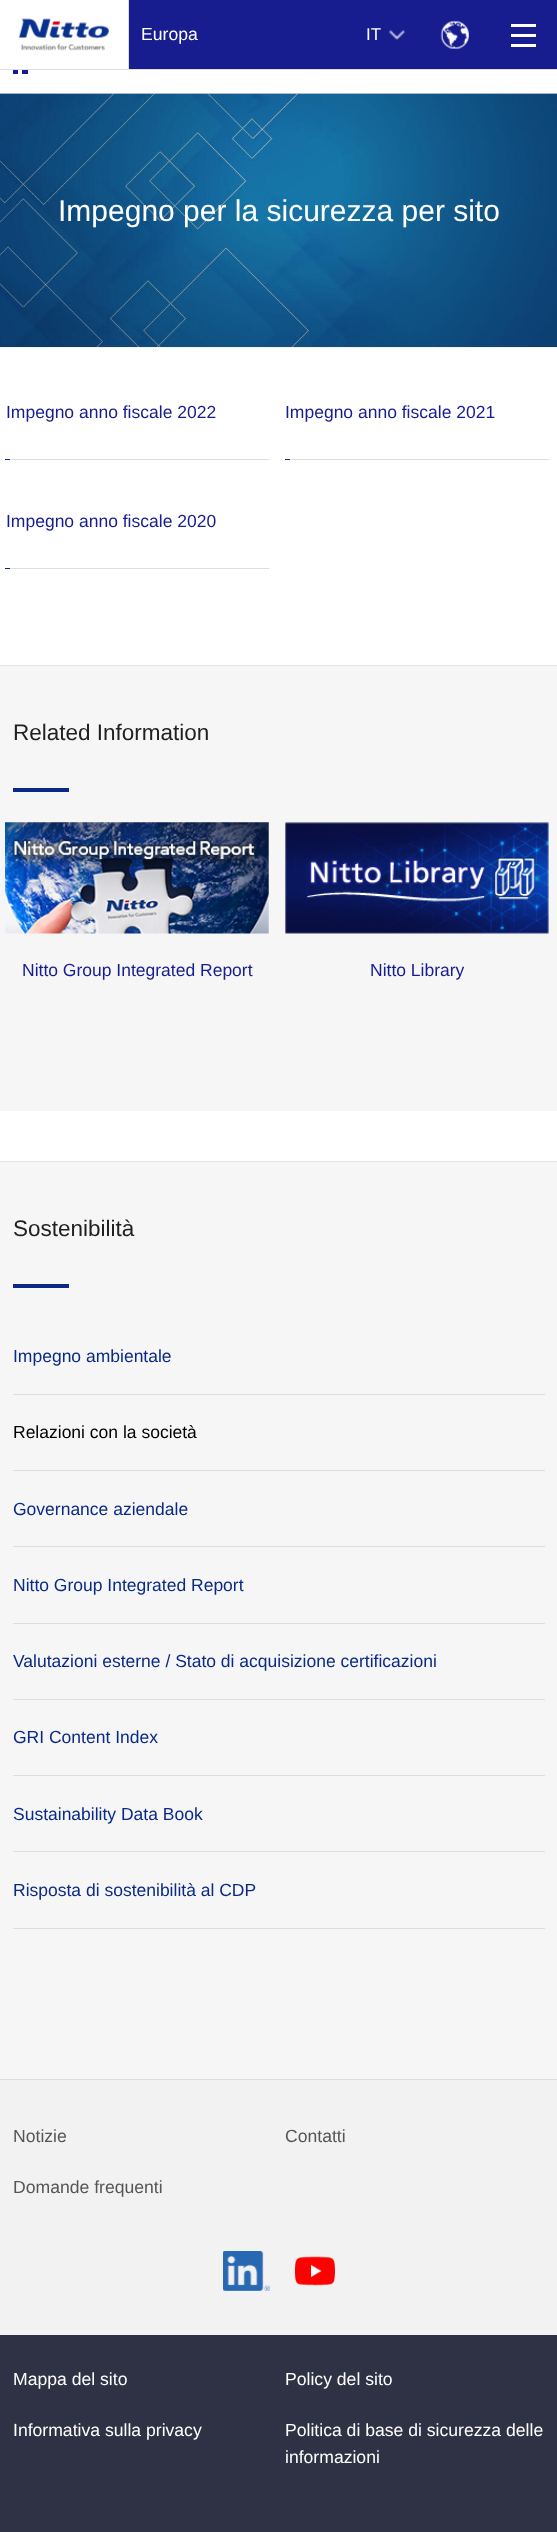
<svg xmlns="http://www.w3.org/2000/svg" width="557" height="2532" viewBox="0 0 557 2532">
  <rect width="100%" height="100%" fill="#ffffff"/>
  <rect x="0" y="69" width="557" height="1" fill="#dddddd"/>
  <rect x="128" y="0" width="1" height="69" fill="#dddddd"/>
  <image x="18" y="18" width="91" height="33" href="img1.png"/>
  <rect x="129" y="0" width="428" height="69" fill="#171c8f"/>
  <text x="141" y="40" font-family="Liberation Sans" font-size="17.6" fill="#ffffff">Europa</text>
  <text x="366" y="40" font-family="Liberation Sans" font-size="17" fill="#ffffff">IT</text>
  <image x="388" y="29" width="18" height="11" href="img2.png"/>
  <image x="440" y="20" width="29" height="29" href="img3.png"/>
  <rect x="511" y="24" width="25" height="3" fill="#ffffff"/>
  <rect x="511" y="34" width="25" height="3" fill="#ffffff"/>
  <rect x="511" y="44" width="25" height="3" fill="#ffffff"/>
  <rect x="0" y="93" width="557" height="1" fill="#dddddd"/>
  <image x="13" y="70" width="15" height="4" href="img4.png"/>
  <image x="0" y="93" width="557" height="255" href="img5.png"/>
  <text x="58" y="221" font-family="Liberation Sans" font-size="30" fill="#ffffff">Impegno per la sicurezza per sito</text>
  <text x="6" y="418" font-family="Liberation Sans" font-size="17.5" fill="#171c8f">Impegno anno fiscale 2022</text>
  <rect x="5" y="459" width="264" height="1" fill="#dddddd"/>
  <rect x="5" y="459" width="5" height="1" fill="#0b2a87"/>
  <text x="285" y="418" font-family="Liberation Sans" font-size="17.5" fill="#171c8f">Impegno anno fiscale 2021</text>
  <rect x="285" y="459" width="264" height="1" fill="#dddddd"/>
  <rect x="285" y="459" width="5" height="1" fill="#0b2a87"/>
  <text x="6" y="527" font-family="Liberation Sans" font-size="17.5" fill="#171c8f">Impegno anno fiscale 2020</text>
  <rect x="5" y="568" width="264" height="1" fill="#dddddd"/>
  <rect x="5" y="568" width="5" height="1" fill="#0b2a87"/>
  <rect x="0" y="666" width="557" height="445" fill="#f6f6f6"/>
  <rect x="0" y="665" width="557" height="1" fill="#e5e5e5"/>
  <text x="13" y="740" font-family="Liberation Sans" font-size="22.5" fill="#212121">Related Information</text>
  <rect x="13" y="788" width="56" height="4" fill="#0a2986"/>
  <image x="5" y="822" width="264" height="112" href="img6.png"/>
  <text x="22" y="976" font-family="Liberation Sans" font-size="17.5" fill="#171c8f">Nitto Group Integrated Report</text>
  <image x="285" y="822" width="264" height="112" href="img7.png"/>
  <text x="370" y="976" font-family="Liberation Sans" font-size="17.5" fill="#171c8f">Nitto Library</text>
  <rect x="0" y="1162" width="557" height="917" fill="#f6f6f6"/>
  <rect x="0" y="1161" width="557" height="1" fill="#e5e5e5"/>
  <text x="13" y="1236" font-family="Liberation Sans" font-size="22.5" fill="#212121">Sostenibilità</text>
  <rect x="13" y="1284" width="56" height="4" fill="#0a2986"/>
  <rect x="13" y="1394" width="532" height="1" fill="#dddddd"/>
  <text x="13" y="1362" font-family="Liberation Sans" font-size="17.5" fill="#0b2a87">Impegno ambientale</text>
  <rect x="13" y="1470" width="532" height="1" fill="#dddddd"/>
  <text x="13" y="1438" font-family="Liberation Sans" font-size="17.5" fill="#000000">Relazioni con la società</text>
  <rect x="13" y="1546" width="532" height="1" fill="#dddddd"/>
  <text x="13" y="1515" font-family="Liberation Sans" font-size="17.5" fill="#0b2a87">Governance aziendale</text>
  <rect x="13" y="1623" width="532" height="1" fill="#dddddd"/>
  <text x="13" y="1591" font-family="Liberation Sans" font-size="17.5" fill="#0b2a87">Nitto Group Integrated Report</text>
  <rect x="13" y="1699" width="532" height="1" fill="#dddddd"/>
  <text x="13" y="1667" font-family="Liberation Sans" font-size="17.5" fill="#0b2a87">Valutazioni esterne / Stato di acquisizione certificazioni</text>
  <rect x="13" y="1775" width="532" height="1" fill="#dddddd"/>
  <text x="13" y="1743" font-family="Liberation Sans" font-size="17.5" fill="#0b2a87">GRI Content Index</text>
  <rect x="13" y="1851" width="532" height="1" fill="#dddddd"/>
  <text x="13" y="1820" font-family="Liberation Sans" font-size="17.5" fill="#0b2a87">Sustainability Data Book</text>
  <rect x="13" y="1928" width="532" height="1" fill="#dddddd"/>
  <text x="13" y="1896" font-family="Liberation Sans" font-size="17.5" fill="#0b2a87">Risposta di sostenibilità al CDP</text>
  <rect x="0" y="2079" width="557" height="1" fill="#dddddd"/>
  <rect x="0" y="2080" width="557" height="255" fill="#f2f2f2"/>
  <text x="13" y="2142" font-family="Liberation Sans" font-size="17.6" fill="#555555">Notizie</text>
  <text x="285" y="2142" font-family="Liberation Sans" font-size="17.6" fill="#555555">Contatti</text>
  <text x="13" y="2193" font-family="Liberation Sans" font-size="17.6" fill="#555555">Domande frequenti</text>
  <image x="223" y="2251" width="47" height="40" href="img8.png"/>
  <image x="295" y="2256" width="40" height="30" href="img9.png"/>
  <rect x="0" y="2335" width="557" height="197" fill="#2f3244"/>
  <text x="13" y="2385" font-family="Liberation Sans" font-size="17.6" fill="#ffffff">Mappa del sito</text>
  <text x="285" y="2385" font-family="Liberation Sans" font-size="17.6" fill="#ffffff">Policy del sito</text>
  <text x="13" y="2436" font-family="Liberation Sans" font-size="17.6" fill="#ffffff">Informativa sulla privacy</text>
  <text x="285" y="2436" font-family="Liberation Sans" font-size="17.6" fill="#ffffff">Politica di base di sicurezza delle</text>
  <text x="285" y="2463" font-family="Liberation Sans" font-size="17.6" fill="#ffffff">informazioni</text>
</svg>
